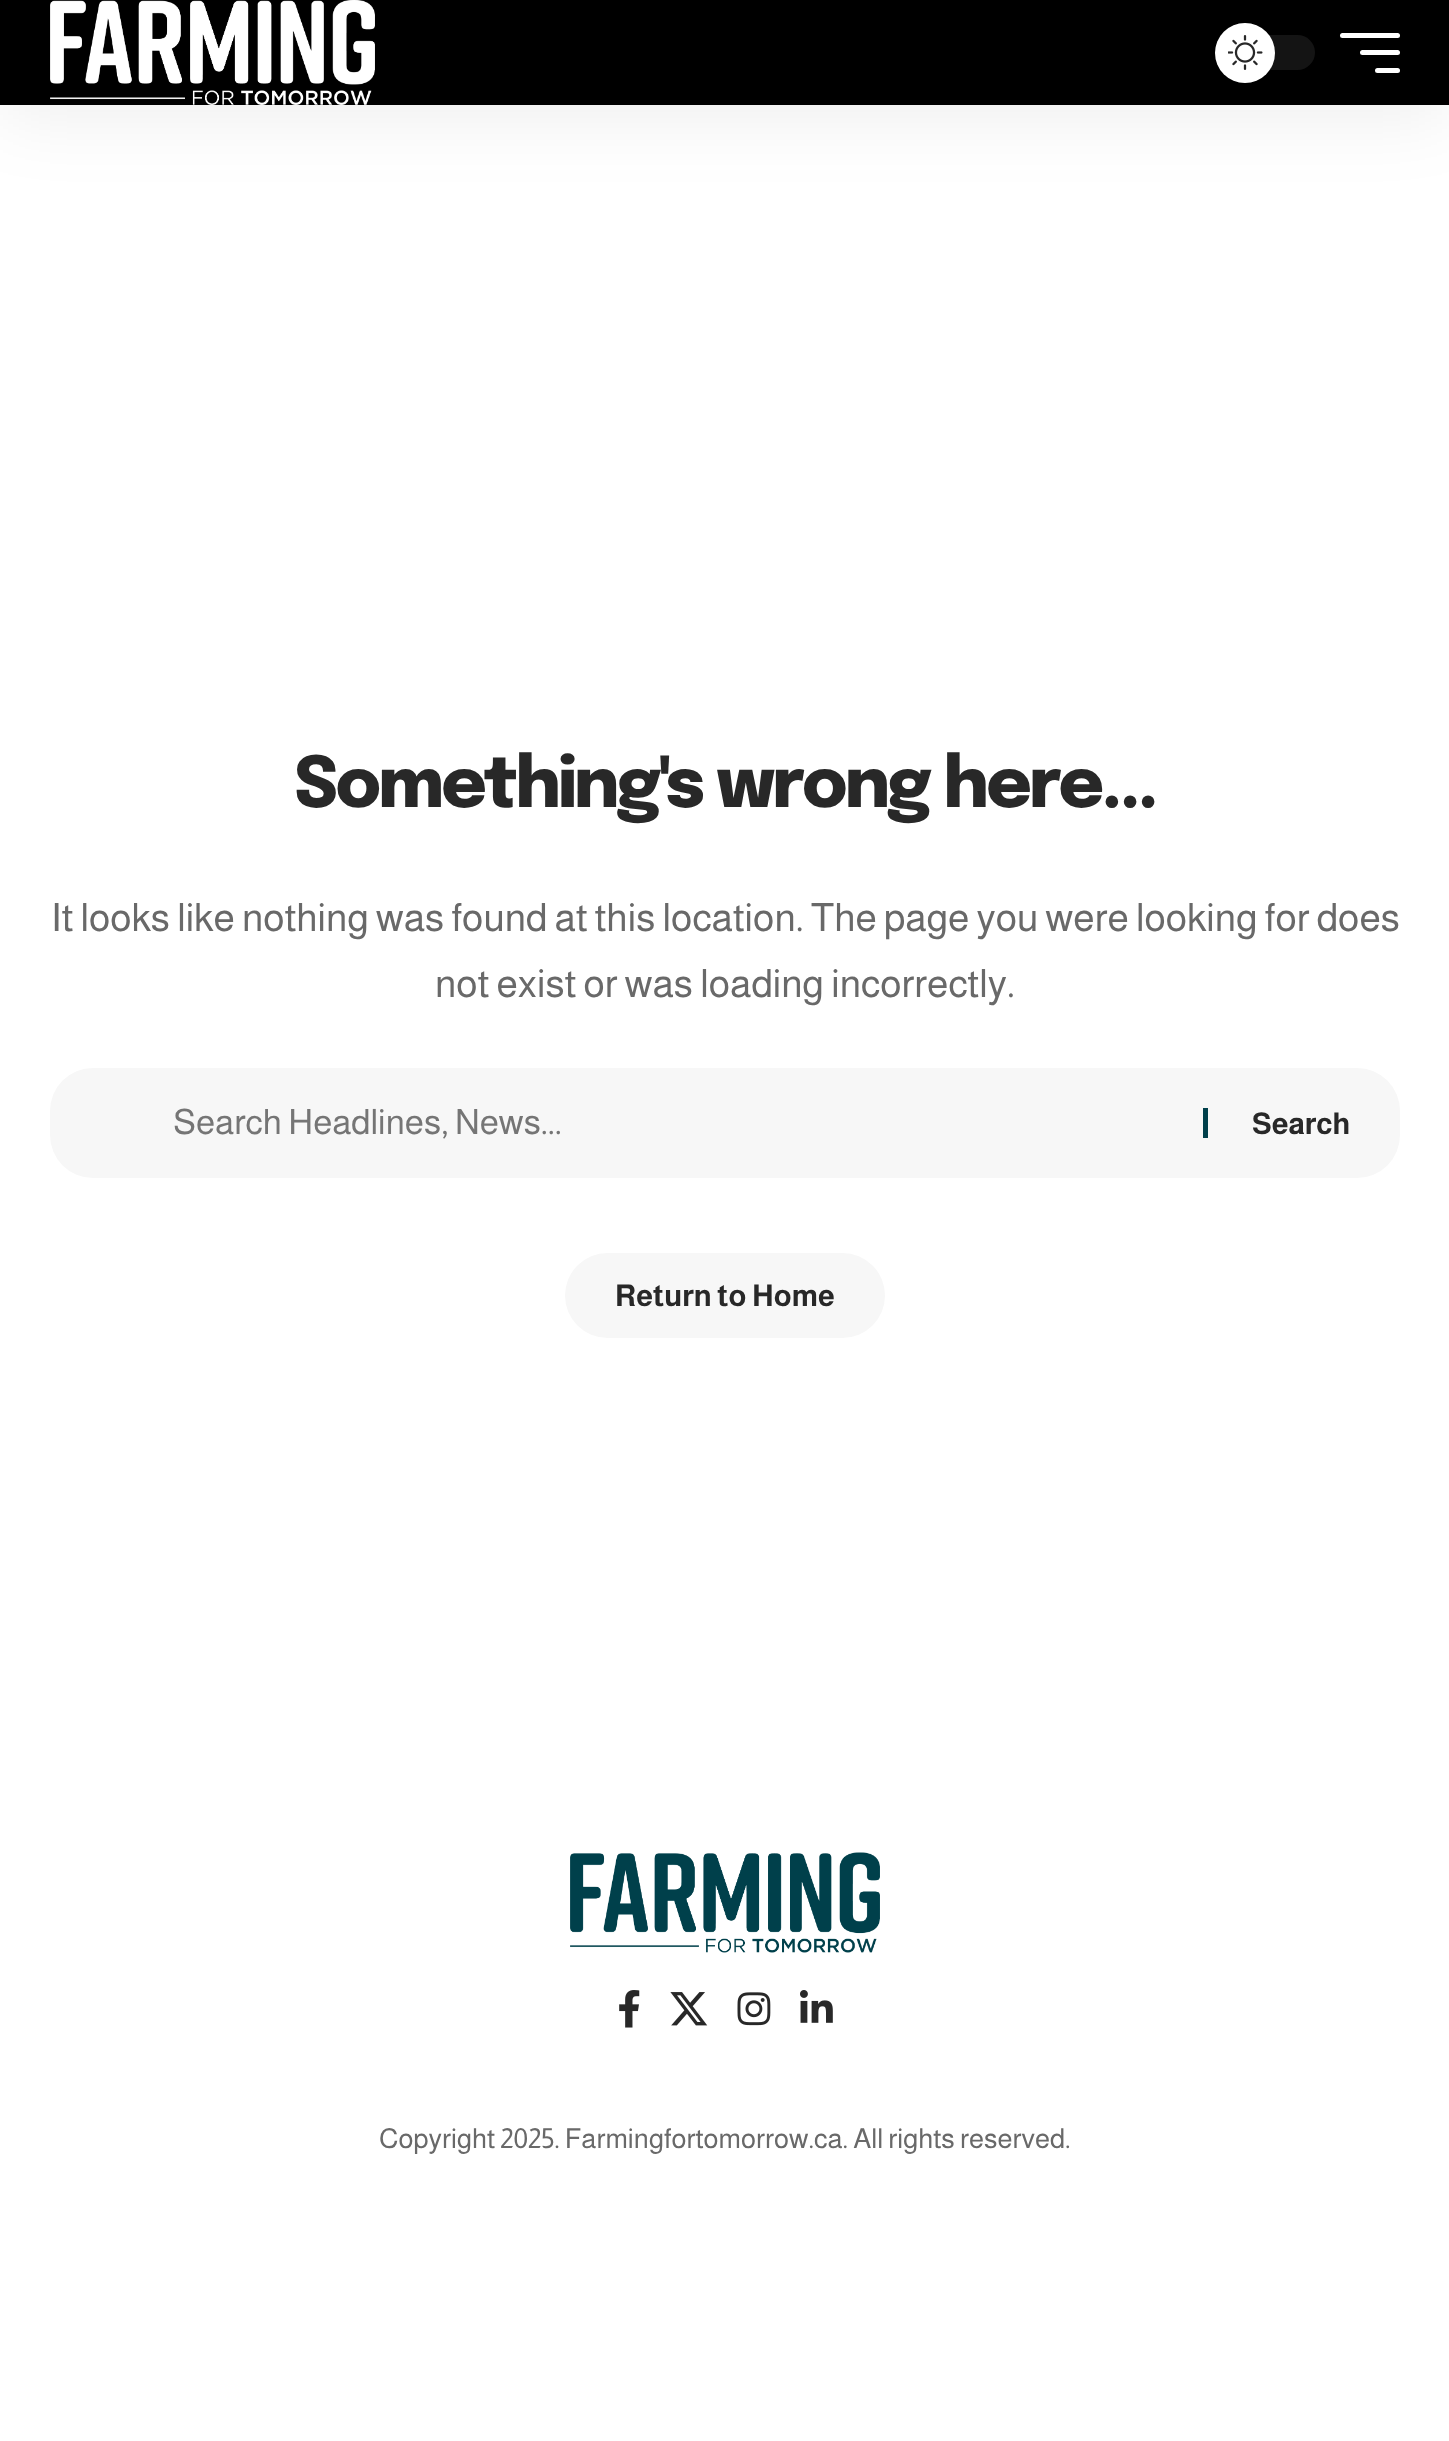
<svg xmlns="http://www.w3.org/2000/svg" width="1449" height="2441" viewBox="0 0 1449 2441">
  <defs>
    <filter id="blur1" x="-50%" y="-200%" width="200%" height="500%"><feGaussianBlur stdDeviation="37.5"/></filter>
  </defs>
  <rect width="100%" height="100%" fill="#ffffff"/>
  <rect x="0" y="10" width="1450" height="105" fill="#000000" fill-opacity="0.07" filter="url(#blur1)"/>
  <rect x="0" y="0" width="1449" height="105" fill="#000000"/>
  <image x="50" y="0" width="325" height="105" href="img1.png"/>
  <rect x="1215" y="35" width="100" height="35" rx="17.5" fill="#141414"/>
  <circle cx="1245" cy="53" r="30" fill="#ffffff"/>
  <image x="1228" y="35" width="35" height="35" href="img2.png"/>
  <rect x="1340" y="33" width="60" height="5" rx="2.5" fill="#ffffff"/>
  <rect x="1360" y="50" width="40" height="5" rx="2.5" fill="#ffffff"/>
  <rect x="1375" y="68" width="25" height="5" rx="2.5" fill="#ffffff"/>
  <text x="294" y="807" font-family="Epilogue" font-size="70" font-weight="800" letter-spacing="-3.05" fill="#282828">Something's wrong here...</text>
  <text x="51" y="931" font-family="Almarai" font-size="39.1" fill="#696969">It looks like nothing was found at this location. The page you were looking for does</text>
  <text x="435" y="997" font-family="Almarai" font-size="39.1" fill="#696969">not exist or was loading incorrectly.</text>
  <rect x="50" y="1068" width="1350" height="110" rx="43" fill="#f7f7f7"/>
  <text x="173" y="1134" font-family="Almarai" font-size="35" fill="#757575">Search Headlines, News...</text>
  <rect x="1203" y="1108" width="5" height="30" fill="#00404b"/>
  <text x="1252" y="1134" font-family="Almarai" font-size="30" font-weight="bold" fill="#282828">Search</text>
  <rect x="565" y="1253" width="320" height="85" rx="42.5" fill="#f7f7f7"/>
  <text x="615" y="1306" font-family="Almarai" font-size="30" font-weight="bold" fill="#282828">Return to Home</text>
  <image x="570" y="1852" width="310" height="101" href="img3.png"/>
  <image x="619" y="1990" width="21" height="38" href="img4.png"/>
  <image x="670" y="1992" width="38" height="34" href="img5.png"/>
  <image x="737" y="1992" width="34" height="34" href="img6.png"/>
  <image x="800" y="1990" width="33" height="33" href="img7.png"/>
  <text x="379" y="2148" font-family="Almarai" font-size="27.5" fill="#696969">Copyright 2025. Farmingfortomorrow.ca. All rights reserved.</text>
</svg>
